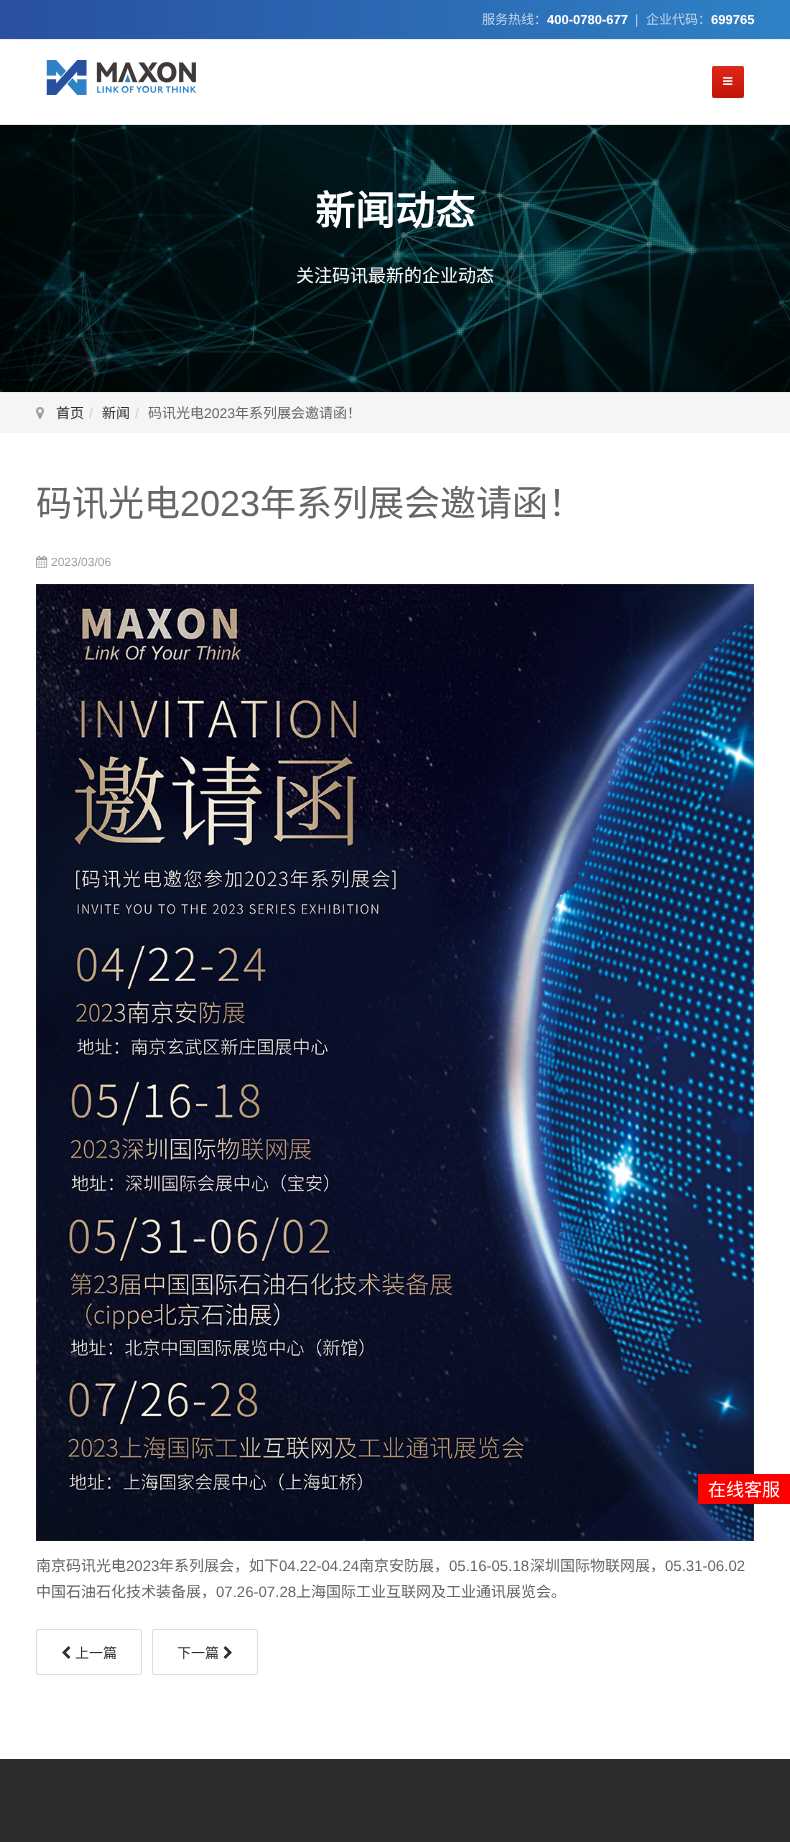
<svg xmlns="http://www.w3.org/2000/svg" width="790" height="1842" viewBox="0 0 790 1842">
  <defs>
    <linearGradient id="g1" gradientUnits="userSpaceOnUse" x1="790" y1="20" x2="0" y2="19"><stop offset="0" stop-color="#2e82c5"/><stop offset="1" stop-color="#294fa1"/></linearGradient>
    <linearGradient id="g2" gradientUnits="userSpaceOnUse" x1="728" y1="66" x2="728" y2="98"><stop offset="0" stop-color="#de291b"/><stop offset="1" stop-color="#c11205"/></linearGradient>
  </defs>
  <rect width="100%" height="100%" fill="#ffffff"/>
  <rect x="0" y="0" width="790" height="39" fill="url(#g1)"/>
  <rect x="0" y="39" width="790" height="1" fill="#eeeeee"/>
  <text x="482" y="24" font-family="Noto Sans CJK SC" font-size="13" fill="#c0d4ea">服务热线：</text>
  <text x="547" y="24" font-family="Liberation Sans" font-size="13" font-weight="bold" fill="#ffffff">400-0780-677</text>
  <text x="635" y="24" font-family="Liberation Sans" font-size="13" fill="#c0d4ea">|</text>
  <text x="646" y="24" font-family="Noto Sans CJK SC" font-size="13" fill="#c0d4ea">企业代码：</text>
  <text x="711" y="24" font-family="Liberation Sans" font-size="13" font-weight="bold" fill="#ffffff">699765</text>
  <rect x="0" y="124" width="790" height="1" fill="#e8e8e8"/>
  <image x="46" y="60" width="151" height="35" href="img1.png"/>
  <rect x="712" y="66" width="32" height="32" rx="2" fill="url(#g2)"/>
  <image x="723" y="77" width="10" height="8" href="img2.png"/>
  <image x="0" y="125" width="790" height="267" href="img3.png"/>
  <rect x="0" y="125" width="790" height="267" fill="#000000" fill-opacity="0.3"/>
  <image x="0" y="125" width="789" height="267" href="img4.png"/>
  <text x="315" y="225" font-family="Noto Sans CJK SC" font-size="40" font-weight="bold" fill="#ffffff">新闻动态</text>
  <text x="296" y="282" font-family="Noto Sans CJK SC" font-size="18" fill="#ffffff">关注码讯最新的企业动态</text>
  <rect x="0" y="393" width="790" height="40" fill="#f5f5f5"/>
  <rect x="0" y="392" width="790" height="1" fill="#eeeeee"/>
  <image x="36" y="407" width="8" height="12" href="img5.png"/>
  <text x="56" y="418" font-family="Noto Sans CJK SC" font-size="14" fill="#2d2d2d">首页</text>
  <text x="89" y="418" font-family="Liberation Sans" font-size="14" fill="#cccccc">/</text>
  <text x="102" y="418" font-family="Noto Sans CJK SC" font-size="14" fill="#2d2d2d">新闻</text>
  <text x="135" y="418" font-family="Liberation Sans" font-size="14" fill="#cccccc">/</text>
  <text x="148" y="418" font-family="Noto Sans CJK SC" font-size="14" fill="#666666">码讯光电</text>
  <text x="204" y="418" font-family="Liberation Sans" font-size="14" fill="#666666">2023</text>
  <text x="235" y="418" font-family="Noto Sans CJK SC" font-size="14" fill="#666666">年系列展会邀请函！</text>
  <text x="36" y="516" font-family="Noto Sans CJK SC" font-size="36" fill="#666666">码讯光电</text>
  <text x="180" y="516" font-family="Liberation Sans" font-size="36" fill="#666666">2023</text>
  <text x="260" y="516" font-family="Noto Sans CJK SC" font-size="36" fill="#666666">年系列展会邀请函！</text>
  <image x="36" y="555" width="12" height="13" href="img6.png"/>
  <text x="51" y="566" font-family="Liberation Sans" font-size="12" fill="#9e9e9e">2023/03/06</text>
  <image x="36" y="584" width="718" height="957" href="img7.png"/>
  <text x="36" y="1571" font-family="Noto Sans CJK SC" font-size="15" fill="#666666">南京码讯光电</text>
  <text x="126" y="1571" font-family="Liberation Sans" font-size="15" fill="#666666">2023</text>
  <text x="159" y="1571" font-family="Noto Sans CJK SC" font-size="15" fill="#666666">年系列展会，如下</text>
  <text x="279" y="1571" font-family="Liberation Sans" font-size="15" fill="#666666">04.22-04.24</text>
  <text x="359" y="1571" font-family="Noto Sans CJK SC" font-size="15" fill="#666666">南京安防展，</text>
  <text x="449" y="1571" font-family="Liberation Sans" font-size="15" fill="#666666">05.16-05.18</text>
  <text x="530" y="1571" font-family="Noto Sans CJK SC" font-size="15" fill="#666666">深圳国际物联网展，</text>
  <text x="665" y="1571" font-family="Liberation Sans" font-size="15" fill="#666666">05.31-06.02</text>
  <text x="36" y="1597" font-family="Noto Sans CJK SC" font-size="15" fill="#666666">中国石油石化技术装备展，</text>
  <text x="216" y="1597" font-family="Liberation Sans" font-size="15" fill="#666666">07.26-07.28</text>
  <text x="296" y="1597" font-family="Noto Sans CJK SC" font-size="15" fill="#666666">上海国际工业互联网及工业通讯展览会。</text>
  <rect x="36.5" y="1629.5" width="105" height="45" rx="1.5" fill="none" stroke="#dddddd"/>
  <image x="62" y="1646" width="9" height="13" href="img8.png"/>
  <text x="75" y="1658" font-family="Noto Sans CJK SC" font-size="14" fill="#2d2d2d">上一篇</text>
  <rect x="152.5" y="1629.5" width="105" height="45" rx="1.5" fill="none" stroke="#dddddd"/>
  <text x="177" y="1658" font-family="Noto Sans CJK SC" font-size="14" fill="#2d2d2d">下一篇</text>
  <image x="223" y="1646" width="9" height="13" href="img9.png"/>
  <rect x="698" y="1474" width="92" height="30" fill="#ff0000"/>
  <text x="708" y="1496" font-family="Noto Sans CJK SC" font-size="18" fill="#ffffff">在线客服</text>
  <rect x="0" y="1759" width="790" height="83" fill="#2d2d2d"/>
</svg>
